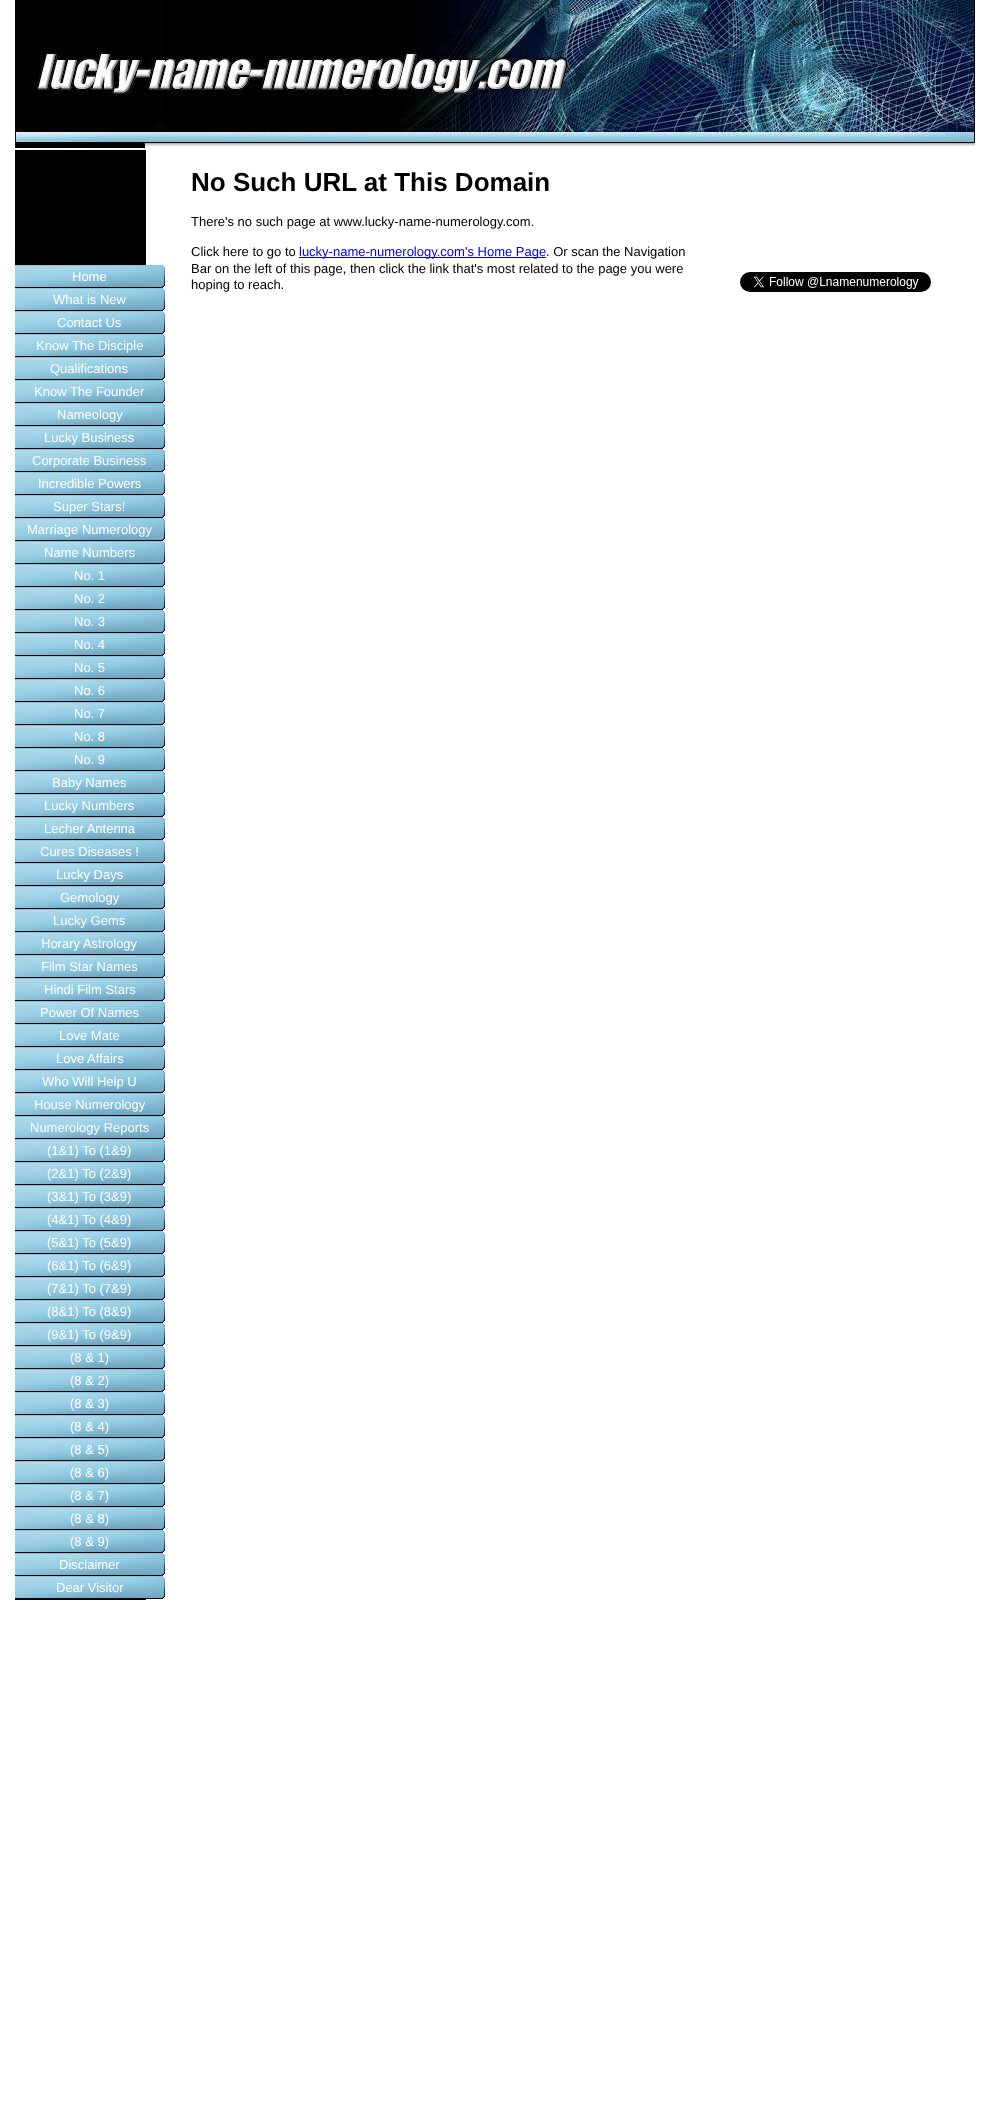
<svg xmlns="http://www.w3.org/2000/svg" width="989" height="2123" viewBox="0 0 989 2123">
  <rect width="100%" height="100%" fill="#ffffff"/>
  <image x="15" y="0" width="960" height="148" href="img1.png"/>
  <text x="191" y="191" font-family="Liberation Sans" font-size="26" font-weight="bold" fill="#000000">No Such URL at This Domain</text>
  <text x="191" y="226" font-family="Liberation Sans" font-size="13" fill="#000000">There's no such page at www.lucky-name-numerology.com.</text>
  <text x="191" y="256" font-family="Liberation Sans" font-size="13" fill="#000000">Click here to go to</text>
  <rect x="299" y="257" width="247" height="1" fill="#0000ee"/>
  <text x="299" y="256" font-family="Liberation Sans" font-size="13" fill="#0000ee">lucky-name-numerology.com's Home Page</text>
  <text x="546" y="256" font-family="Liberation Sans" font-size="13" fill="#000000">. Or scan the Navigation</text>
  <text x="191" y="273" font-family="Liberation Sans" font-size="13" fill="#000000">Bar on the left of this page, then click the link that's most related to the page you were</text>
  <text x="191" y="289" font-family="Liberation Sans" font-size="13" fill="#000000">hoping to reach.</text>
  <rect x="15" y="150" width="131" height="1450" fill="#000000"/>
  <image x="15" y="265" width="150" height="23" href="img2.png"/>
  <text x="72" y="281" font-family="Liberation Sans" font-size="13" fill="#ffffff">Home</text>
  <image x="15" y="288" width="150" height="23" href="img2.png"/>
  <text x="53" y="304" font-family="Liberation Sans" font-size="13" fill="#ffffff">What is New</text>
  <image x="15" y="311" width="150" height="23" href="img2.png"/>
  <text x="57" y="327" font-family="Liberation Sans" font-size="13" fill="#ffffff">Contact Us</text>
  <image x="15" y="334" width="150" height="23" href="img2.png"/>
  <text x="36" y="350" font-family="Liberation Sans" font-size="13" fill="#ffffff">Know The Disciple</text>
  <image x="15" y="357" width="150" height="23" href="img2.png"/>
  <text x="50" y="373" font-family="Liberation Sans" font-size="13" fill="#ffffff">Qualifications</text>
  <image x="15" y="380" width="150" height="23" href="img2.png"/>
  <text x="34" y="396" font-family="Liberation Sans" font-size="13" fill="#ffffff">Know The Founder</text>
  <image x="15" y="403" width="150" height="23" href="img2.png"/>
  <text x="57" y="419" font-family="Liberation Sans" font-size="13" fill="#ffffff">Nameology</text>
  <image x="15" y="426" width="150" height="23" href="img2.png"/>
  <text x="44" y="442" font-family="Liberation Sans" font-size="13" fill="#ffffff">Lucky Business</text>
  <image x="15" y="449" width="150" height="23" href="img2.png"/>
  <text x="32" y="465" font-family="Liberation Sans" font-size="13" fill="#ffffff">Corporate Business</text>
  <image x="15" y="472" width="150" height="23" href="img2.png"/>
  <text x="38" y="488" font-family="Liberation Sans" font-size="13" fill="#ffffff">Incredible Powers</text>
  <image x="15" y="495" width="150" height="23" href="img2.png"/>
  <text x="53" y="511" font-family="Liberation Sans" font-size="13" fill="#ffffff">Super Stars!</text>
  <image x="15" y="518" width="150" height="23" href="img2.png"/>
  <text x="27" y="534" font-family="Liberation Sans" font-size="13" fill="#ffffff">Marriage Numerology</text>
  <image x="15" y="541" width="150" height="23" href="img2.png"/>
  <text x="44" y="557" font-family="Liberation Sans" font-size="13" fill="#ffffff">Name Numbers</text>
  <image x="15" y="564" width="150" height="23" href="img2.png"/>
  <text x="74" y="580" font-family="Liberation Sans" font-size="13" fill="#ffffff">No. 1</text>
  <image x="15" y="587" width="150" height="23" href="img2.png"/>
  <text x="74" y="603" font-family="Liberation Sans" font-size="13" fill="#ffffff">No. 2</text>
  <image x="15" y="610" width="150" height="23" href="img2.png"/>
  <text x="74" y="626" font-family="Liberation Sans" font-size="13" fill="#ffffff">No. 3</text>
  <image x="15" y="633" width="150" height="23" href="img2.png"/>
  <text x="74" y="649" font-family="Liberation Sans" font-size="13" fill="#ffffff">No. 4</text>
  <image x="15" y="656" width="150" height="23" href="img2.png"/>
  <text x="74" y="672" font-family="Liberation Sans" font-size="13" fill="#ffffff">No. 5</text>
  <image x="15" y="679" width="150" height="23" href="img2.png"/>
  <text x="74" y="695" font-family="Liberation Sans" font-size="13" fill="#ffffff">No. 6</text>
  <image x="15" y="702" width="150" height="23" href="img2.png"/>
  <text x="74" y="718" font-family="Liberation Sans" font-size="13" fill="#ffffff">No. 7</text>
  <image x="15" y="725" width="150" height="23" href="img2.png"/>
  <text x="74" y="741" font-family="Liberation Sans" font-size="13" fill="#ffffff">No. 8</text>
  <image x="15" y="748" width="150" height="23" href="img2.png"/>
  <text x="74" y="764" font-family="Liberation Sans" font-size="13" fill="#ffffff">No. 9</text>
  <image x="15" y="771" width="150" height="23" href="img2.png"/>
  <text x="52" y="787" font-family="Liberation Sans" font-size="13" fill="#ffffff">Baby Names</text>
  <image x="15" y="794" width="150" height="23" href="img2.png"/>
  <text x="44" y="810" font-family="Liberation Sans" font-size="13" fill="#ffffff">Lucky Numbers</text>
  <image x="15" y="817" width="150" height="23" href="img2.png"/>
  <text x="44" y="833" font-family="Liberation Sans" font-size="13" fill="#ffffff">Lecher Antenna</text>
  <image x="15" y="840" width="150" height="23" href="img2.png"/>
  <text x="40" y="856" font-family="Liberation Sans" font-size="13" fill="#ffffff">Cures Diseases !</text>
  <image x="15" y="863" width="150" height="23" href="img2.png"/>
  <text x="56" y="879" font-family="Liberation Sans" font-size="13" fill="#ffffff">Lucky Days</text>
  <image x="15" y="886" width="150" height="23" href="img2.png"/>
  <text x="60" y="902" font-family="Liberation Sans" font-size="13" fill="#ffffff">Gemology</text>
  <image x="15" y="909" width="150" height="23" href="img2.png"/>
  <text x="53" y="925" font-family="Liberation Sans" font-size="13" fill="#ffffff">Lucky Gems</text>
  <image x="15" y="932" width="150" height="23" href="img2.png"/>
  <text x="41" y="948" font-family="Liberation Sans" font-size="13" fill="#ffffff">Horary Astrology</text>
  <image x="15" y="955" width="150" height="23" href="img2.png"/>
  <text x="41" y="971" font-family="Liberation Sans" font-size="13" fill="#ffffff">Film Star Names</text>
  <image x="15" y="978" width="150" height="23" href="img2.png"/>
  <text x="44" y="994" font-family="Liberation Sans" font-size="13" fill="#ffffff">Hindi Film Stars</text>
  <image x="15" y="1001" width="150" height="23" href="img2.png"/>
  <text x="40" y="1017" font-family="Liberation Sans" font-size="13" fill="#ffffff">Power Of Names</text>
  <image x="15" y="1024" width="150" height="23" href="img2.png"/>
  <text x="59" y="1040" font-family="Liberation Sans" font-size="13" fill="#ffffff">Love Mate</text>
  <image x="15" y="1047" width="150" height="23" href="img2.png"/>
  <text x="56" y="1063" font-family="Liberation Sans" font-size="13" fill="#ffffff">Love Affairs</text>
  <image x="15" y="1070" width="150" height="23" href="img2.png"/>
  <text x="42" y="1086" font-family="Liberation Sans" font-size="13" fill="#ffffff">Who Will Help U</text>
  <image x="15" y="1093" width="150" height="23" href="img2.png"/>
  <text x="34" y="1109" font-family="Liberation Sans" font-size="13" fill="#ffffff">House Numerology</text>
  <image x="15" y="1116" width="150" height="23" href="img2.png"/>
  <text x="30" y="1132" font-family="Liberation Sans" font-size="13" fill="#ffffff">Numerology Reports</text>
  <image x="15" y="1139" width="150" height="23" href="img2.png"/>
  <text x="47" y="1155" font-family="Liberation Sans" font-size="13" fill="#ffffff">(1&amp;1) To (1&amp;9)</text>
  <image x="15" y="1162" width="150" height="23" href="img2.png"/>
  <text x="47" y="1178" font-family="Liberation Sans" font-size="13" fill="#ffffff">(2&amp;1) To (2&amp;9)</text>
  <image x="15" y="1185" width="150" height="23" href="img2.png"/>
  <text x="47" y="1201" font-family="Liberation Sans" font-size="13" fill="#ffffff">(3&amp;1) To (3&amp;9)</text>
  <image x="15" y="1208" width="150" height="23" href="img2.png"/>
  <text x="47" y="1224" font-family="Liberation Sans" font-size="13" fill="#ffffff">(4&amp;1) To (4&amp;9)</text>
  <image x="15" y="1231" width="150" height="23" href="img2.png"/>
  <text x="47" y="1247" font-family="Liberation Sans" font-size="13" fill="#ffffff">(5&amp;1) To (5&amp;9)</text>
  <image x="15" y="1254" width="150" height="23" href="img2.png"/>
  <text x="47" y="1270" font-family="Liberation Sans" font-size="13" fill="#ffffff">(6&amp;1) To (6&amp;9)</text>
  <image x="15" y="1277" width="150" height="23" href="img2.png"/>
  <text x="47" y="1293" font-family="Liberation Sans" font-size="13" fill="#ffffff">(7&amp;1) To (7&amp;9)</text>
  <image x="15" y="1300" width="150" height="23" href="img2.png"/>
  <text x="47" y="1316" font-family="Liberation Sans" font-size="13" fill="#ffffff">(8&amp;1) To (8&amp;9)</text>
  <image x="15" y="1323" width="150" height="23" href="img2.png"/>
  <text x="47" y="1339" font-family="Liberation Sans" font-size="13" fill="#ffffff">(9&amp;1) To (9&amp;9)</text>
  <image x="15" y="1346" width="150" height="23" href="img2.png"/>
  <text x="70" y="1362" font-family="Liberation Sans" font-size="13" fill="#ffffff">(8 &amp; 1)</text>
  <image x="15" y="1369" width="150" height="23" href="img2.png"/>
  <text x="70" y="1385" font-family="Liberation Sans" font-size="13" fill="#ffffff">(8 &amp; 2)</text>
  <image x="15" y="1392" width="150" height="23" href="img2.png"/>
  <text x="70" y="1408" font-family="Liberation Sans" font-size="13" fill="#ffffff">(8 &amp; 3)</text>
  <image x="15" y="1415" width="150" height="23" href="img2.png"/>
  <text x="70" y="1431" font-family="Liberation Sans" font-size="13" fill="#ffffff">(8 &amp; 4)</text>
  <image x="15" y="1438" width="150" height="23" href="img2.png"/>
  <text x="70" y="1454" font-family="Liberation Sans" font-size="13" fill="#ffffff">(8 &amp; 5)</text>
  <image x="15" y="1461" width="150" height="23" href="img2.png"/>
  <text x="70" y="1477" font-family="Liberation Sans" font-size="13" fill="#ffffff">(8 &amp; 6)</text>
  <image x="15" y="1484" width="150" height="23" href="img2.png"/>
  <text x="70" y="1500" font-family="Liberation Sans" font-size="13" fill="#ffffff">(8 &amp; 7)</text>
  <image x="15" y="1507" width="150" height="23" href="img2.png"/>
  <text x="70" y="1523" font-family="Liberation Sans" font-size="13" fill="#ffffff">(8 &amp; 8)</text>
  <image x="15" y="1530" width="150" height="23" href="img2.png"/>
  <text x="70" y="1546" font-family="Liberation Sans" font-size="13" fill="#ffffff">(8 &amp; 9)</text>
  <image x="15" y="1553" width="150" height="23" href="img2.png"/>
  <text x="59" y="1569" font-family="Liberation Sans" font-size="13" fill="#ffffff">Disclaimer</text>
  <image x="15" y="1576" width="150" height="23" href="img2.png"/>
  <text x="56" y="1592" font-family="Liberation Sans" font-size="13" fill="#ffffff">Dear Visitor</text>
  <image x="740" y="272" width="191" height="20" href="img3.png"/>
</svg>
